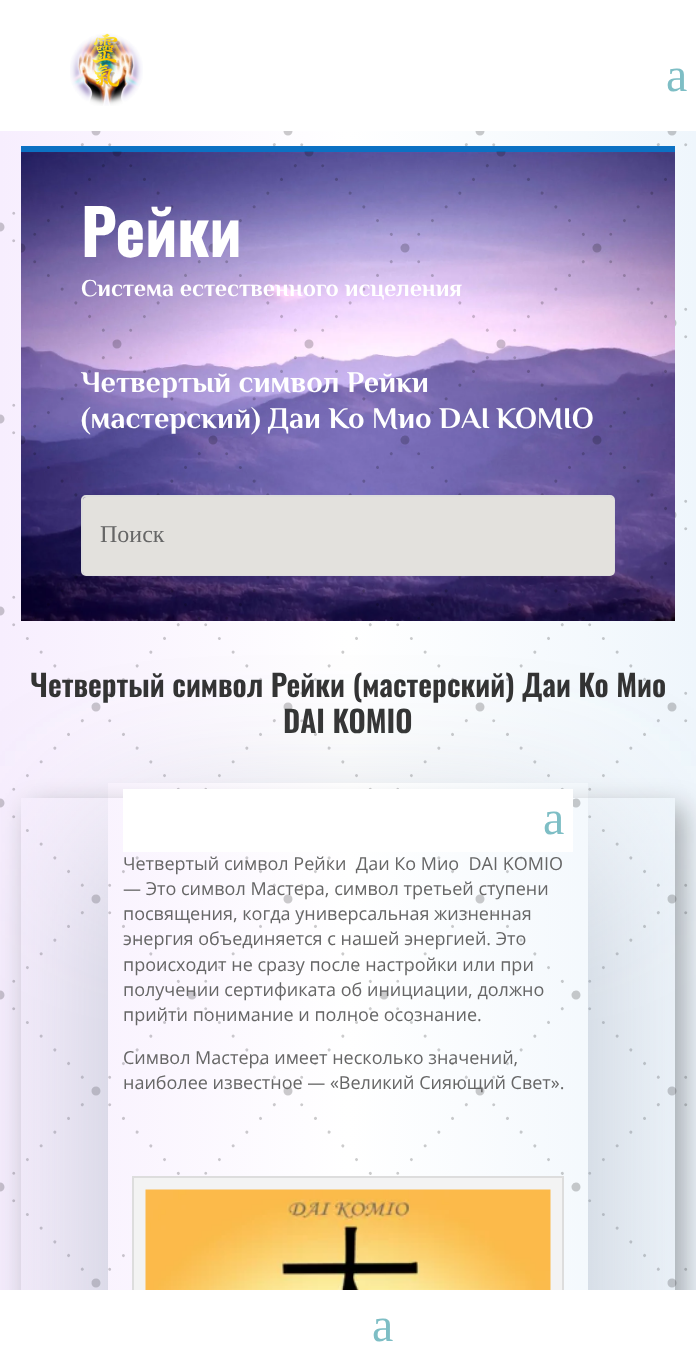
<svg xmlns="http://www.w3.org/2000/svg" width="696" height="1350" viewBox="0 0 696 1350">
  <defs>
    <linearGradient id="g1" gradientUnits="userSpaceOnUse" x1="0" y1="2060" x2="696" y2="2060"><stop offset="0" stop-color="#f7eefe"/><stop offset="0.5" stop-color="#ffffff"/><stop offset="1" stop-color="#eff6fc"/></linearGradient>
    <clipPath id="clip1"><path d="M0 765H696V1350H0ZM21 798H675V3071H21Z" clip-rule="evenodd"/></clipPath>
    <filter id="blur1" x="-50%" y="-200%" width="200%" height="500%"><feGaussianBlur stdDeviation="13.5"/></filter>
    <clipPath id="clip2"><path d="M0 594H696V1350H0ZM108 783H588V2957H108Z" clip-rule="evenodd"/></clipPath>
    <filter id="blur2" x="-50%" y="-200%" width="200%" height="500%"><feGaussianBlur stdDeviation="82.5"/></filter>
  </defs>
  <rect width="100%" height="100%" fill="#ffffff"/>
  <image x="70" y="33" width="73" height="73" href="img1.png"/>
  <text x="666" y="91" font-family="Liberation Serif" font-size="48" fill="#7ebec5">a</text>
  <rect x="0" y="131" width="696" height="1159" fill="url(#g1)"/>
  <image x="0" y="131" width="688" height="1157" href="img2.png"/>
  <image x="21" y="152" width="654" height="469" href="img3.png"/>
  <rect x="21" y="146" width="654" height="6" fill="#0c71c3"/>
  <image x="21" y="151" width="646" height="469" href="img4.png"/>
  <text x="81" y="257" font-family="Oswald" font-size="63" font-weight="bold" fill="#ffffff">Рейки</text>
  <text x="81" y="296" font-family="Philosopher" font-size="24" font-weight="bold" fill="#ffffff">Система естественного исцеления</text>
  <text x="81" y="392" font-family="Philosopher" font-size="30" font-weight="bold" fill="#ffffff">Четвертый символ Рейки</text>
  <text x="81" y="428" font-family="Philosopher" font-size="30" font-weight="bold" fill="#ffffff">(мастерский) Даи Ко Мио</text>
  <text x="439" y="428" word-spacing="-1" font-family="Philosopher" font-size="30" font-weight="bold" fill="#ffffff">DAI KOMIO</text>
  <rect x="82" y="496" width="532" height="79" rx="4" fill="none" stroke="#dddddd" stroke-width="2"/>
  <rect x="83" y="497" width="531" height="78" rx="3" fill="#e3e1dd"/>
  <text x="100" y="542" font-family="Liberation Serif" font-size="24" fill="#666666">Поиск</text>
  <text x="30" y="697" font-family="Oswald" font-size="30" font-weight="600" fill="#333333">Четвертый символ Рейки (мастерский) Даи Ко Мио</text>
  <text x="283" y="733" font-family="Oswald" font-size="30" font-weight="600" fill="#333333">DAI KOMIO</text>
  <g clip-path="url(#clip1)">
    <rect x="30" y="807" width="654" height="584" fill="#000000" fill-opacity="0.3" filter="url(#blur1)"/>
  </g>
  <g clip-path="url(#clip2)">
    <rect x="108" y="843" width="480" height="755" fill="#8392a7" fill-opacity="0.5" filter="url(#blur2)"/>
  </g>
  <rect x="123" y="789" width="450" height="63" fill="#ffffff"/>
  <text x="543" y="834" font-family="Liberation Serif" font-size="48" fill="#7ebec5">a</text>
  <text x="123" y="870" font-family="Open Sans" font-size="18" fill="#666666" xml:space="preserve">Четвертый символ Рейки  Даи Ко Мио  DAI KOMIO</text>
  <text x="123" y="895" font-family="Open Sans" font-size="18" fill="#666666">— Это символ Мастера, символ третьей ступени</text>
  <text x="123" y="920" font-family="Open Sans" font-size="18" fill="#666666">посвящения, когда универсальная жизненная</text>
  <text x="123" y="945" font-family="Open Sans" font-size="18" fill="#666666">энергия объединяется с нашей энергией. Это</text>
  <text x="123" y="971" font-family="Open Sans" font-size="18" fill="#666666">происходит не сразу после настройки или при</text>
  <text x="123" y="996" font-family="Open Sans" font-size="18" fill="#666666">получении сертификата об инициации, должно</text>
  <text x="123" y="1021" font-family="Open Sans" font-size="18" fill="#666666">прийти понимание и полное осознание.</text>
  <text x="123" y="1064" font-family="Open Sans" font-size="18" fill="#666666">Символ Мастера имеет несколько значений,</text>
  <text x="123" y="1089" font-family="Open Sans" font-size="18" fill="#666666">наиболее известное — «Великий Сияющий Свет».</text>
  <rect x="134" y="1178" width="428" height="112" fill="#f3f3f3"/>
  <rect x="133" y="1177" width="430" height="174" fill="none" stroke="#dddddd" stroke-width="2"/>
  <image x="145" y="1189" width="406" height="101" href="img5.png"/>
  <rect x="0" y="1290" width="696" height="60" fill="#ffffff"/>
  <text x="372" y="1341" font-family="Liberation Serif" font-size="48" fill="#7ebec5">a</text>
</svg>
